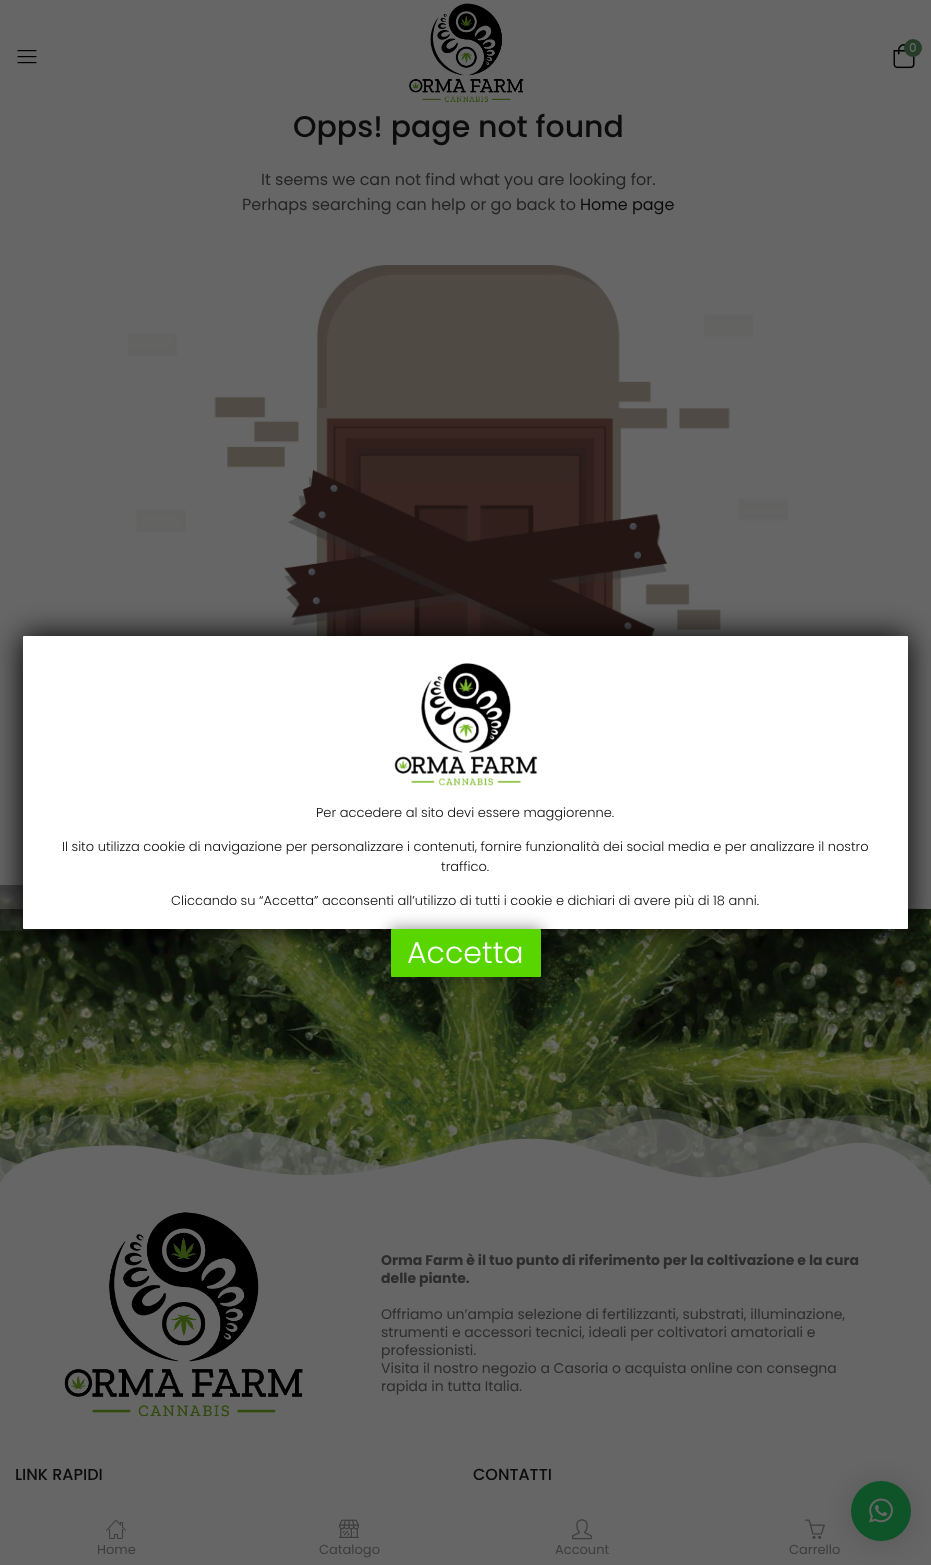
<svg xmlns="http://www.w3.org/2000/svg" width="931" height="1565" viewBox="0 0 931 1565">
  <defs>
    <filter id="blur1" x="-50%" y="-200%" width="200%" height="500%"><feGaussianBlur stdDeviation="15"/></filter>
    <filter id="blur2" x="-50%" y="-200%" width="200%" height="500%"><feGaussianBlur stdDeviation="7.5"/></filter>
    <filter id="blur3" x="-50%" y="-200%" width="200%" height="500%"><feGaussianBlur stdDeviation="16"/></filter>
  </defs>
  <rect width="100%" height="100%" fill="#666666"/>
  <image x="409" y="3" width="115" height="99" href="img1.png"/>
  <image x="893" y="44" width="22" height="25" href="img2.png"/>
  <circle cx="913" cy="48" r="9" fill="#253d28"/>
  <text x="909" y="52" font-family="Poppins" font-size="12" font-weight="500" fill="#666666">0</text>
  <image x="17" y="50" width="20" height="14" href="img3.png"/>
  <text x="293" y="137" font-family="Poppins" font-size="30" font-weight="500" fill="#0c0c0c">Opps! page not found</text>
  <text x="261" y="185" font-family="Poppins" font-size="16" fill="#252525">It seems we can not find what you are looking for.</text>
  <text x="242" y="210" font-family="Poppins" font-size="16" fill="#252525">Perhaps searching can help or go back to</text>
  <text x="580" y="210" font-family="Poppins" font-size="16" fill="#0c0c0c">Home page</text>
  <image x="128" y="265" width="660" height="371" href="img4.png"/>
  <image x="0" y="885" width="931" height="300" href="img5.png"/>
  <path d="M0 884H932V909Z" fill="#666666"/>
  <rect x="0" y="885" width="930" height="24" fill="#666666" fill-opacity="0.5"/>
  <path d="M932 884H0V931L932 909Z" fill="#666666" fill-opacity="0.25"/>
  <image x="0" y="1106" width="931" height="79" href="img6.png"/>
  <image x="64" y="1212" width="239" height="205" href="img7.png"/>
  <text x="381" y="1265" font-family="Poppins" font-size="14" font-weight="bold" fill="#2d2d2d">Orma Farm è il tuo punto di riferimento per la coltivazione e la cura</text>
  <text x="381" y="1283" font-family="Poppins" font-size="14" font-weight="bold" fill="#2d2d2d">delle piante.</text>
  <text x="381" y="1319" font-family="Poppins" font-size="14" fill="#2d2d2d">Offriamo un’ampia selezione di fertilizzanti, substrati, illuminazione,</text>
  <text x="381" y="1337" font-family="Poppins" font-size="14" fill="#2d2d2d">strumenti e accessori tecnici, ideali per coltivatori amatoriali e</text>
  <text x="381" y="1355" font-family="Poppins" font-size="14" fill="#2d2d2d">professionisti.</text>
  <text x="381" y="1373" font-family="Poppins" font-size="14" fill="#2d2d2d">Visita il nostro negozio a Casoria o acquista online con consegna</text>
  <text x="381" y="1391" font-family="Poppins" font-size="14" fill="#2d2d2d">rapida in tutta Italia.</text>
  <text x="15" y="1480" font-family="Poppins" font-size="16" font-weight="500" fill="#0c0c0c">LINK RAPIDI</text>
  <text x="473" y="1480" font-family="Poppins" font-size="16" font-weight="500" fill="#0c0c0c">CONTATTI</text>
  <image x="106" y="1520" width="20" height="19" href="img8.png"/>
  <text x="97" y="1554" font-family="Poppins" font-size="13" fill="#3d3d3d">Home</text>
  <image x="339" y="1519" width="20" height="19" href="img9.png"/>
  <text x="319" y="1554" font-family="Poppins" font-size="13" fill="#3d3d3d">Catalogo</text>
  <image x="572" y="1519" width="20" height="21" href="img10.png"/>
  <text x="555" y="1554" font-family="Poppins" font-size="13" fill="#3d3d3d">Account</text>
  <image x="805" y="1519" width="20" height="20" href="img11.png"/>
  <text x="789" y="1554" font-family="Poppins" font-size="13" fill="#3d3d3d">Carrello</text>
  <rect x="23" y="636" width="885" height="293" rx="1" fill="#020202" filter="url(#blur1)"/>
  <rect x="23" y="636" width="885" height="293" rx="1" fill="#ffffff"/>
  <image x="394" y="663" width="144" height="123" href="img12.png"/>
  <text x="316" y="817" font-family="Poppins" font-size="13" font-weight="300" fill="#0c0c0c">Per accedere al sito devi essere maggiorenne.</text>
  <text x="62" y="851" font-family="Poppins" font-size="13" font-weight="300" fill="#0c0c0c">Il sito utilizza cookie di navigazione per personalizzare i contenuti, fornire funzionalità dei social media e per analizzare il nostro</text>
  <text x="441" y="871" font-family="Poppins" font-size="13" font-weight="300" fill="#0c0c0c">traffico.</text>
  <text x="171" y="905" font-family="Poppins" font-size="13" font-weight="300" fill="#0c0c0c">Cliccando su “Accetta” acconsenti all’utilizzo di tutti i cookie e dichiari di avere più di 18 anni.</text>
  <rect x="390" y="928" width="152" height="50" rx="2" fill="#020202" fill-opacity="0.41" filter="url(#blur2)"/>
  <rect x="391" y="929" width="150" height="48" rx="1" fill="#59d600"/>
  <text x="407" y="963" font-family="Poppins" font-size="30" font-weight="300" fill="#ffffff">Accetta</text>
  <rect x="851" y="1483" width="60" height="60" rx="30" fill="#000000" fill-opacity="0.16" filter="url(#blur3)"/>
  <circle cx="881" cy="1511" r="30" fill="#0f5429"/>
  <image x="869" y="1498" width="24" height="25" href="img13.png"/>
</svg>
